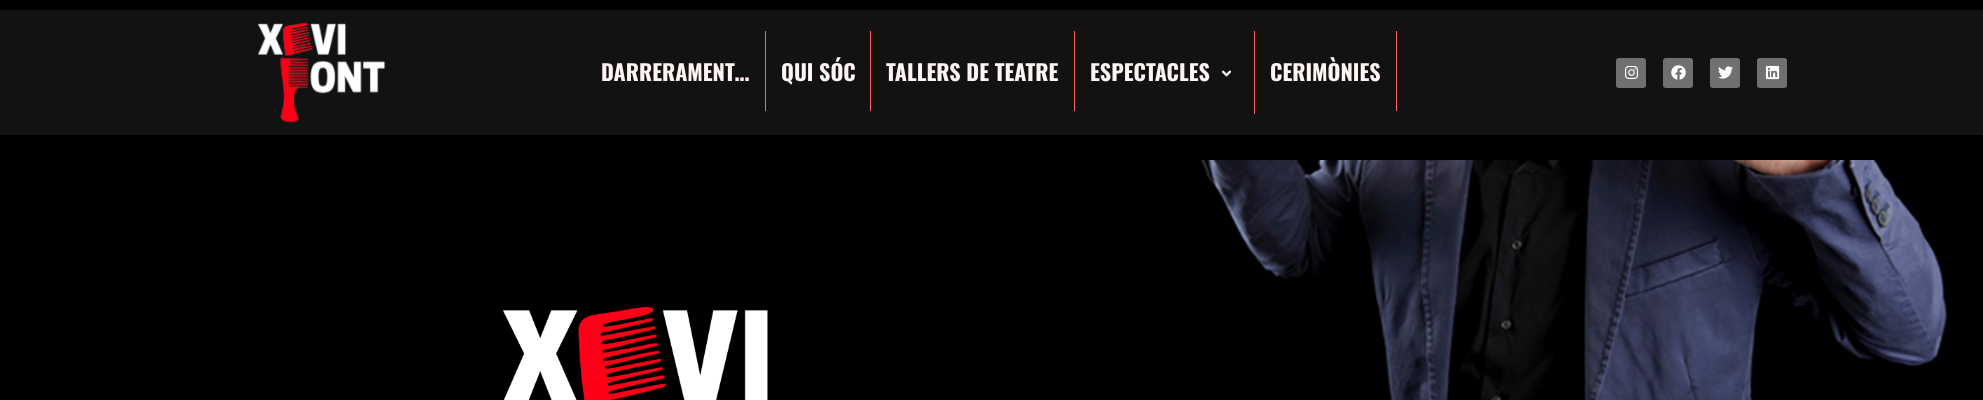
<svg xmlns="http://www.w3.org/2000/svg" width="1983" height="400" viewBox="0 0 1983 400">
  <rect width="100%" height="100%" fill="#000000"/>
  <rect x="0" y="10" width="1983" height="125" fill="#121212"/>
  <image x="257" y="22" width="129" height="101" href="img1.png"/>
  <rect x="765" y="31" width="1" height="80" fill="#ff6464"/>
  <text x="601" y="81" font-family="Oswald" font-size="22" font-weight="bold" fill="#fff4f4">DARRERAMENT…</text>
  <rect x="870" y="31" width="1" height="80" fill="#ff6464"/>
  <text x="781" y="81" font-family="Oswald" font-size="22" font-weight="bold" fill="#fff4f4">QUI SÓC</text>
  <rect x="1074" y="31" width="1" height="80" fill="#ff6464"/>
  <text x="886" y="81" font-family="Oswald" font-size="22" font-weight="bold" fill="#fff4f4">TALLERS DE TEATRE</text>
  <rect x="1254" y="31" width="1" height="83" fill="#ff6464"/>
  <text x="1090" y="81" font-family="Oswald" font-size="22" font-weight="bold" fill="#fff4f4">ESPECTACLES</text>
  <image x="1221" y="70" width="11" height="7" href="img2.png"/>
  <rect x="1396" y="31" width="1" height="80" fill="#ff6464"/>
  <text x="1270" y="81" font-family="Oswald" font-size="22" font-weight="bold" fill="#fff4f4">CERIMÒNIES</text>
  <rect x="1616" y="58" width="30" height="30" rx="3" fill="#707070"/>
  <image x="1625" y="66" width="13" height="13" href="img3.png"/>
  <rect x="1663" y="58" width="30" height="30" rx="3" fill="#707070"/>
  <image x="1671" y="65" width="15" height="15" href="img4.png"/>
  <rect x="1710" y="58" width="30" height="30" rx="3" fill="#707070"/>
  <image x="1718" y="66" width="15" height="13" href="img5.png"/>
  <rect x="1757" y="58" width="30" height="30" rx="3" fill="#707070"/>
  <image x="1765" y="65" width="15" height="15" href="img6.png"/>
  <image x="1200" y="160" width="748" height="240" href="img7.png"/>
  <image x="503" y="307" width="265" height="93" href="img8.png"/>
</svg>
